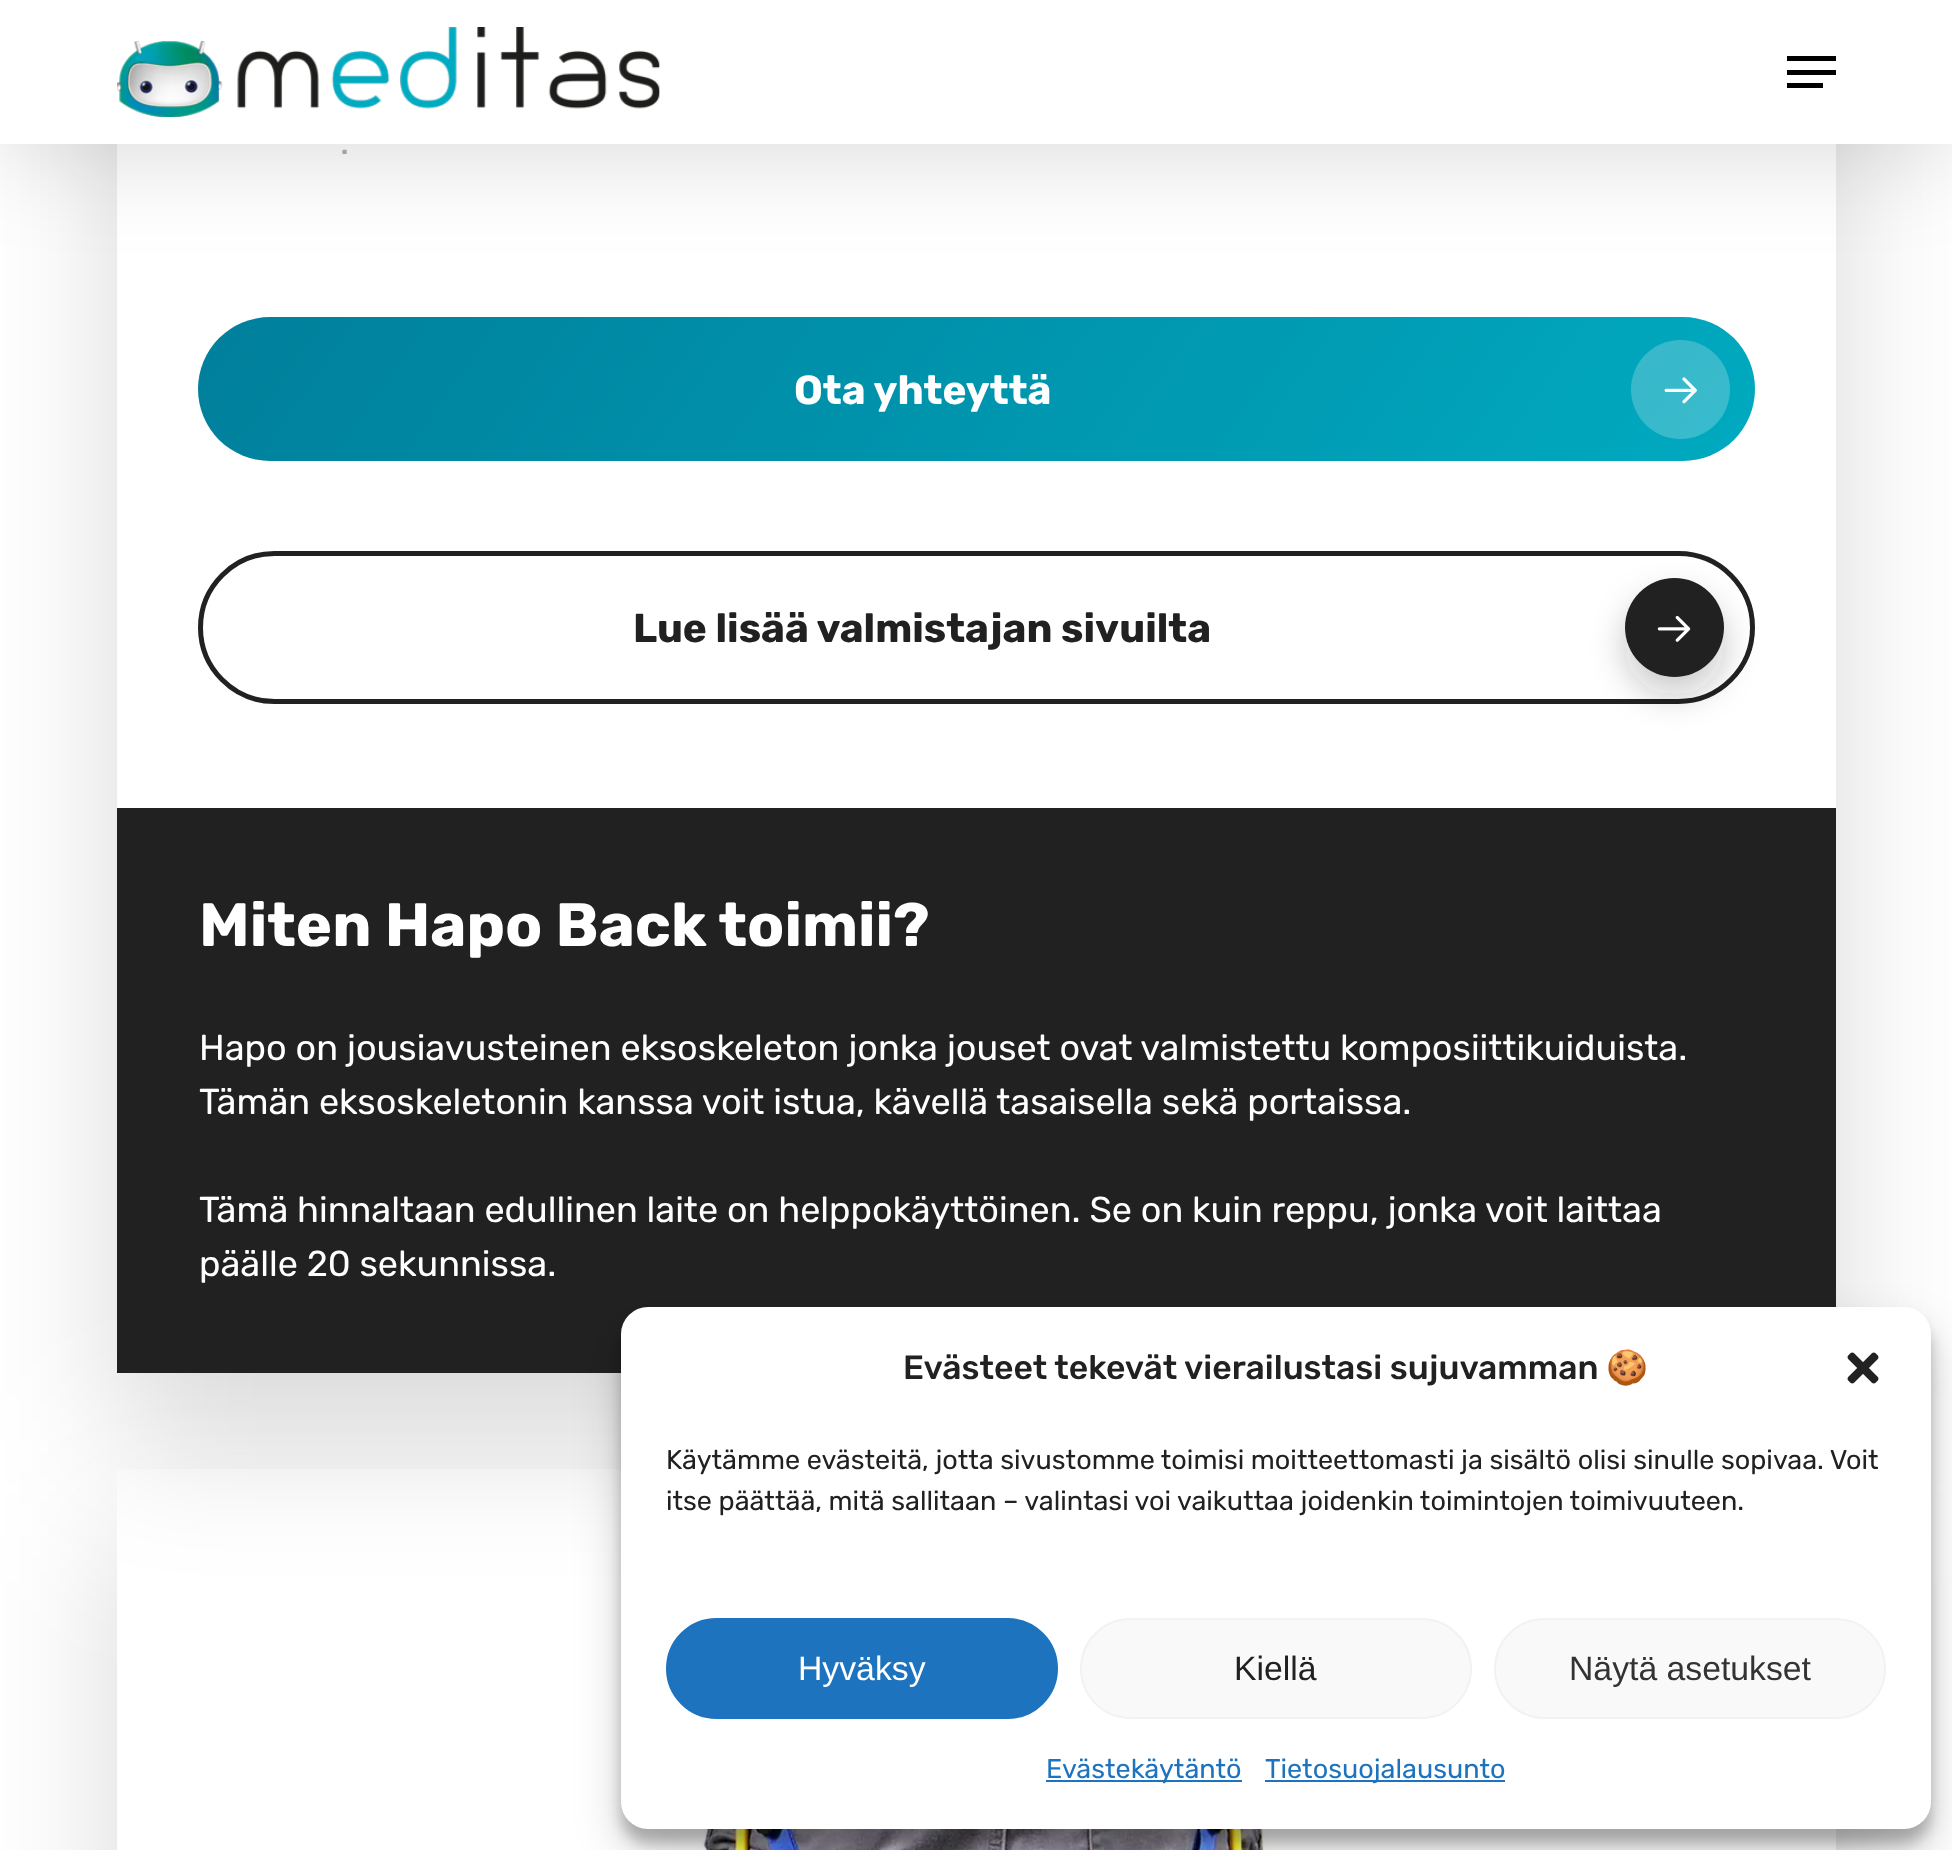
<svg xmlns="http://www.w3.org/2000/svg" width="1952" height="1850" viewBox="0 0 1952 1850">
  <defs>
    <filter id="blur1" x="-50%" y="-200%" width="200%" height="500%"><feGaussianBlur stdDeviation="67.5"/></filter>
    <filter id="blur2" x="-50%" y="-200%" width="200%" height="500%"><feGaussianBlur stdDeviation="50.5"/></filter>
    <linearGradient id="g1" gradientUnits="userSpaceOnUse" x1="420" y1="-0.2" x2="1533" y2="779"><stop offset="0" stop-color="#007f9b"/><stop offset="1" stop-color="#00aac0"/></linearGradient>
    <clipPath id="clip1"><path d="M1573 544H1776V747H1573ZM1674.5 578C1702 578 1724 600 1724 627.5C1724 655 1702 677 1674.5 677C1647 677 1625 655 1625 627.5C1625 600 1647 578 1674.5 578Z" clip-rule="evenodd"/></clipPath>
    <filter id="blur3" x="-50%" y="-200%" width="200%" height="500%"><feGaussianBlur stdDeviation="17"/></filter>
    <clipPath id="clip2"><path d="M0 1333H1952V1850H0ZM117 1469H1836V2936H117Z" clip-rule="evenodd"/></clipPath>
    <filter id="blur4" x="-50%" y="-200%" width="200%" height="500%"><feGaussianBlur stdDeviation="7"/></filter>
    <filter id="blur5" x="-50%" y="-200%" width="200%" height="500%"><feGaussianBlur stdDeviation="22.5"/></filter>
  </defs>
  <rect width="100%" height="100%" fill="#ffffff"/>
  <rect x="117" y="-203" width="1719" height="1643" fill="#000000" fill-opacity="0.15" filter="url(#blur1)"/>
  <rect x="117" y="144" width="1719" height="664" fill="#ffffff"/>
  <rect x="0" y="7" width="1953" height="144" fill="#000000" fill-opacity="0.15" filter="url(#blur2)"/>
  <rect x="0" y="0" width="1952" height="144" fill="#ffffff"/>
  <image x="117" y="27" width="543" height="90" href="img1.png"/>
  <rect x="1787" y="56" width="49" height="5" fill="#000000"/>
  <rect x="1787" y="83" width="36" height="5" fill="#000000"/>
  <rect x="1787" y="70" width="49" height="5" fill="#000000"/>
  <text x="340" y="154" font-family="Rubik" font-size="36" fill="#a3a3a3">.</text>
  <rect x="198" y="317" width="1557" height="144" rx="72" fill="url(#g1)"/>
  <text x="794" y="404" font-family="Rubik" font-size="40.5" font-weight="bold" fill="#ffffff">Ota yhteyttä</text>
  <circle cx="1680.5" cy="389.5" r="49.5" fill="#ffffff" fill-opacity="0.22"/>
  <image x="1664" y="377" width="33" height="27" href="img2.png"/>
  <rect x="200.5" y="553.5" width="1552" height="148" rx="74" fill="none" stroke="#212121" stroke-width="5"/>
  <text x="633" y="642" font-family="Rubik" font-size="40.5" font-weight="bold" fill="#212121">Lue lisää valmistajan sivuilta</text>
  <circle cx="1674.5" cy="627.5" r="49.5" fill="#212121"/>
  <image x="1657" y="615" width="34" height="27" href="img3.png"/>
  <g clip-path="url(#clip1)">
    <rect x="1625" y="596" width="99" height="99" rx="49.5" fill="#212121" fill-opacity="0.24" filter="url(#blur3)"/>
  </g>
  <g clip-path="url(#clip2)">
    <rect x="117" y="1537" width="1719" height="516" fill="#000000" fill-opacity="0.15" filter="url(#blur1)"/>
  </g>
  <rect x="117" y="808" width="1719" height="565" fill="#212121"/>
  <text x="199" y="946" font-family="Rubik" font-size="61.25" font-weight="bold" fill="#ffffff">Miten Hapo Back toimii?</text>
  <text x="199" y="1060" font-family="Rubik" font-size="36" fill="#ffffff">Hapo on jousiavusteinen eksoskeleton jonka jouset ovat valmistettu komposiittikuiduista.</text>
  <text x="199" y="1114" font-family="Rubik" font-size="36" fill="#ffffff">Tämän eksoskeletonin kanssa voit istua, kävellä tasaisella sekä portaissa.</text>
  <text x="199" y="1222" font-family="Rubik" font-size="36" fill="#ffffff">Tämä hinnaltaan edullinen laite on helppokäyttöinen. Se on kuin reppu, jonka voit laittaa</text>
  <text x="199" y="1276" font-family="Rubik" font-size="36" fill="#ffffff">päälle 20 sekunnissa.</text>
  <image x="654" y="1829" width="687" height="21" href="img4.png"/>
  <rect x="621" y="1321" width="1310" height="522" rx="27" fill="#000000" fill-opacity="0.23" filter="url(#blur4)"/>
  <rect x="621" y="1330" width="1310" height="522" rx="27" fill="#000000" fill-opacity="0.19" filter="url(#blur5)"/>
  <rect x="621" y="1307" width="1310" height="522" rx="27" fill="#ffffff"/>
  <text x="903" y="1379" font-family="Rubik" font-size="33.75" font-weight="500" fill="#212121">Evästeet tekevät vierailustasi sujuvamman</text>
  <text x="1606" y="1379" font-family="Noto Color Emoji" font-size="33.75" fill="#212121">🍪</text>
  <image x="1847" y="1352" width="32" height="32" href="img5.png"/>
  <text x="666" y="1469" font-family="Rubik" font-size="27" fill="#212121">Käytämme evästeitä, jotta sivustomme toimisi moitteettomasti ja sisältö olisi sinulle sopivaa. Voit</text>
  <text x="666" y="1510" font-family="Rubik" font-size="27" fill="#212121">itse päättää, mitä sallitaan – valintasi voi vaikuttaa joidenkin toimintojen toimivuuteen.</text>
  <rect x="667" y="1619" width="390" height="99" rx="49.5" fill="#1e73be" stroke="#1e73be" stroke-width="2"/>
  <text x="798" y="1680" font-family="Liberation Sans" font-size="33.75" fill="#ffffff">Hyväksy</text>
  <rect x="1081" y="1619" width="390" height="99" rx="49.5" fill="#f9f9f9" stroke="#f2f2f2" stroke-width="2"/>
  <text x="1234" y="1680" font-family="Liberation Sans" font-size="33.75" fill="#212121">Kiellä</text>
  <rect x="1495" y="1619" width="390" height="99" rx="49.5" fill="#f9f9f9" stroke="#f2f2f2" stroke-width="2"/>
  <text x="1569" y="1680" font-family="Liberation Sans" font-size="33.75" fill="#333333">Näytä asetukset</text>
  <rect x="1046" y="1780" width="196" height="2" fill="#1e73be"/>
  <text x="1046" y="1778" font-family="Rubik" font-size="27" fill="#1e73be">Evästekäytäntö</text>
  <rect x="1265" y="1780" width="240" height="2" fill="#1e73be"/>
  <text x="1265" y="1778" font-family="Rubik" font-size="27" fill="#1e73be">Tietosuojalausunto</text>
</svg>
